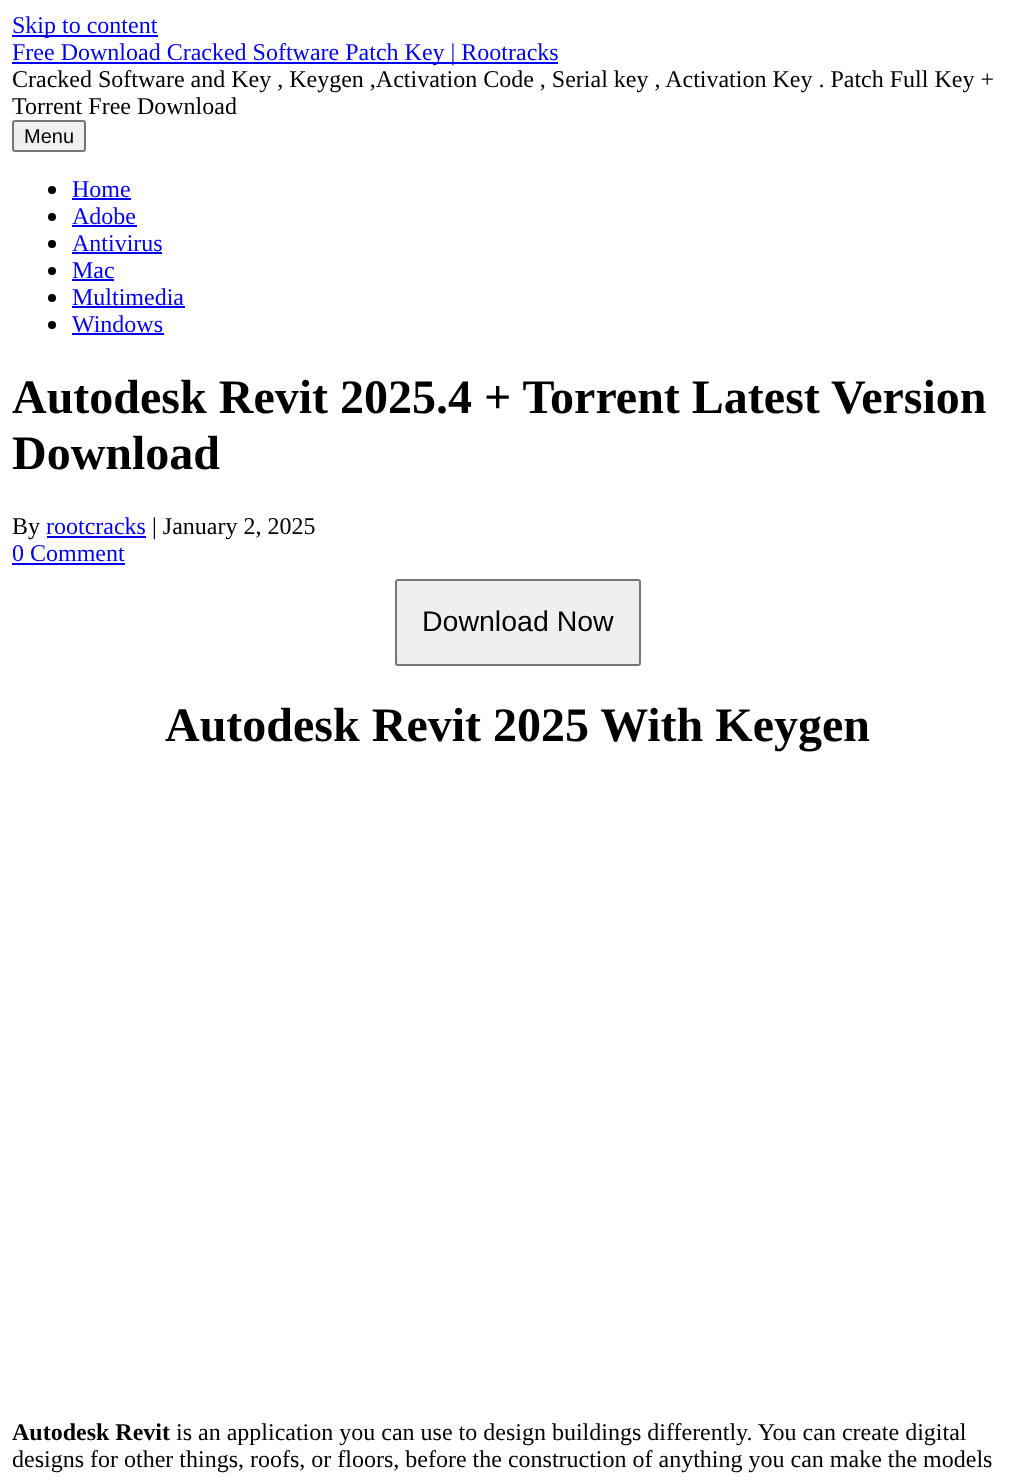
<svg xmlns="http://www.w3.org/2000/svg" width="1035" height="1481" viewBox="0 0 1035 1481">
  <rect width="100%" height="100%" fill="#ffffff"/>
  <rect x="12" y="35" width="146" height="2" fill="#0000ee"/>
  <text x="12" y="33" font-family="Liberation Serif" font-size="24" fill="#0000ee">Skip to content</text>
  <rect x="12" y="62" width="546" height="2" fill="#0000ee"/>
  <text x="12" y="60" font-family="Liberation Serif" font-size="24" fill="#0000ee">Free Download Cracked Software Patch Key | Rootracks</text>
  <text x="12" y="87" font-family="Liberation Serif" font-size="24" fill="#000000">Cracked Software and Key , Keygen ,Activation Code , Serial key , Activation Key . Patch Full Key +</text>
  <text x="12" y="114" font-family="Liberation Serif" font-size="24" fill="#000000">Torrent Free Download</text>
  <rect x="13" y="121" width="72" height="30" rx="2" fill="#efefef" stroke="#767676" stroke-width="2"/>
  <text x="24" y="143" font-family="Liberation Sans" font-size="20" fill="#000000">Menu</text>
  <circle cx="52" cy="190" r="4" fill="#000000"/>
  <text x="72" y="197" font-family="Liberation Serif" font-size="24" fill="#0000ee">Home</text>
  <rect x="72" y="198" width="59" height="2" fill="#0000ee"/>
  <circle cx="52" cy="217" r="4" fill="#000000"/>
  <text x="72" y="224" font-family="Liberation Serif" font-size="24" fill="#0000ee">Adobe</text>
  <rect x="72" y="225" width="65" height="2" fill="#0000ee"/>
  <circle cx="52" cy="244" r="4" fill="#000000"/>
  <text x="72" y="251" font-family="Liberation Serif" font-size="24" fill="#0000ee">Antivirus</text>
  <rect x="72" y="252" width="90" height="2" fill="#0000ee"/>
  <circle cx="52" cy="271" r="4" fill="#000000"/>
  <text x="72" y="278" font-family="Liberation Serif" font-size="24" fill="#0000ee">Mac</text>
  <rect x="72" y="279" width="42" height="2" fill="#0000ee"/>
  <circle cx="52" cy="298" r="4" fill="#000000"/>
  <text x="72" y="305" font-family="Liberation Serif" font-size="24" fill="#0000ee">Multimedia</text>
  <rect x="72" y="306" width="113" height="2" fill="#0000ee"/>
  <circle cx="52" cy="325" r="4" fill="#000000"/>
  <text x="72" y="332" font-family="Liberation Serif" font-size="24" fill="#0000ee">Windows</text>
  <rect x="72" y="333" width="92" height="2" fill="#0000ee"/>
  <text x="12" y="413" font-family="Liberation Serif" font-size="48" font-weight="bold" fill="#000000">Autodesk Revit 2025.4 + Torrent Latest Version</text>
  <text x="12" y="469" font-family="Liberation Serif" font-size="48" font-weight="bold" fill="#000000">Download</text>
  <text x="12" y="534" font-family="Liberation Serif" font-size="24" fill="#000000">By</text>
  <text x="46" y="534" font-family="Liberation Serif" font-size="24" fill="#0000ee">rootcracks</text>
  <rect x="47" y="536" width="99" height="2" fill="#0000ee"/>
  <text x="152" y="534" font-family="Liberation Serif" font-size="24" fill="#000000">| January 2, 2025</text>
  <text x="12" y="561" font-family="Liberation Serif" font-size="24" fill="#0000ee">0 Comment</text>
  <rect x="12" y="563" width="113" height="2" fill="#0000ee"/>
  <rect x="396" y="580" width="244" height="85" rx="2" fill="#efefef" stroke="#767676" stroke-width="2"/>
  <text x="422" y="631" font-family="Liberation Sans" font-size="28.5" fill="#000000">Download Now</text>
  <text x="165" y="741" font-family="Liberation Serif" font-size="48" font-weight="bold" fill="#000000">Autodesk Revit 2025 With Keygen</text>
  <text x="12" y="1440" font-family="Liberation Serif" font-size="24" font-weight="bold" fill="#000000">Autodesk Revit</text>
  <text x="176" y="1440" font-family="Liberation Serif" font-size="24" fill="#000000">is an application you can use to design buildings differently. You can create digital</text>
  <text x="12" y="1467" font-family="Liberation Serif" font-size="24" fill="#000000">designs for other things, roofs, or floors, before the construction of anything you can make the models</text>
</svg>
